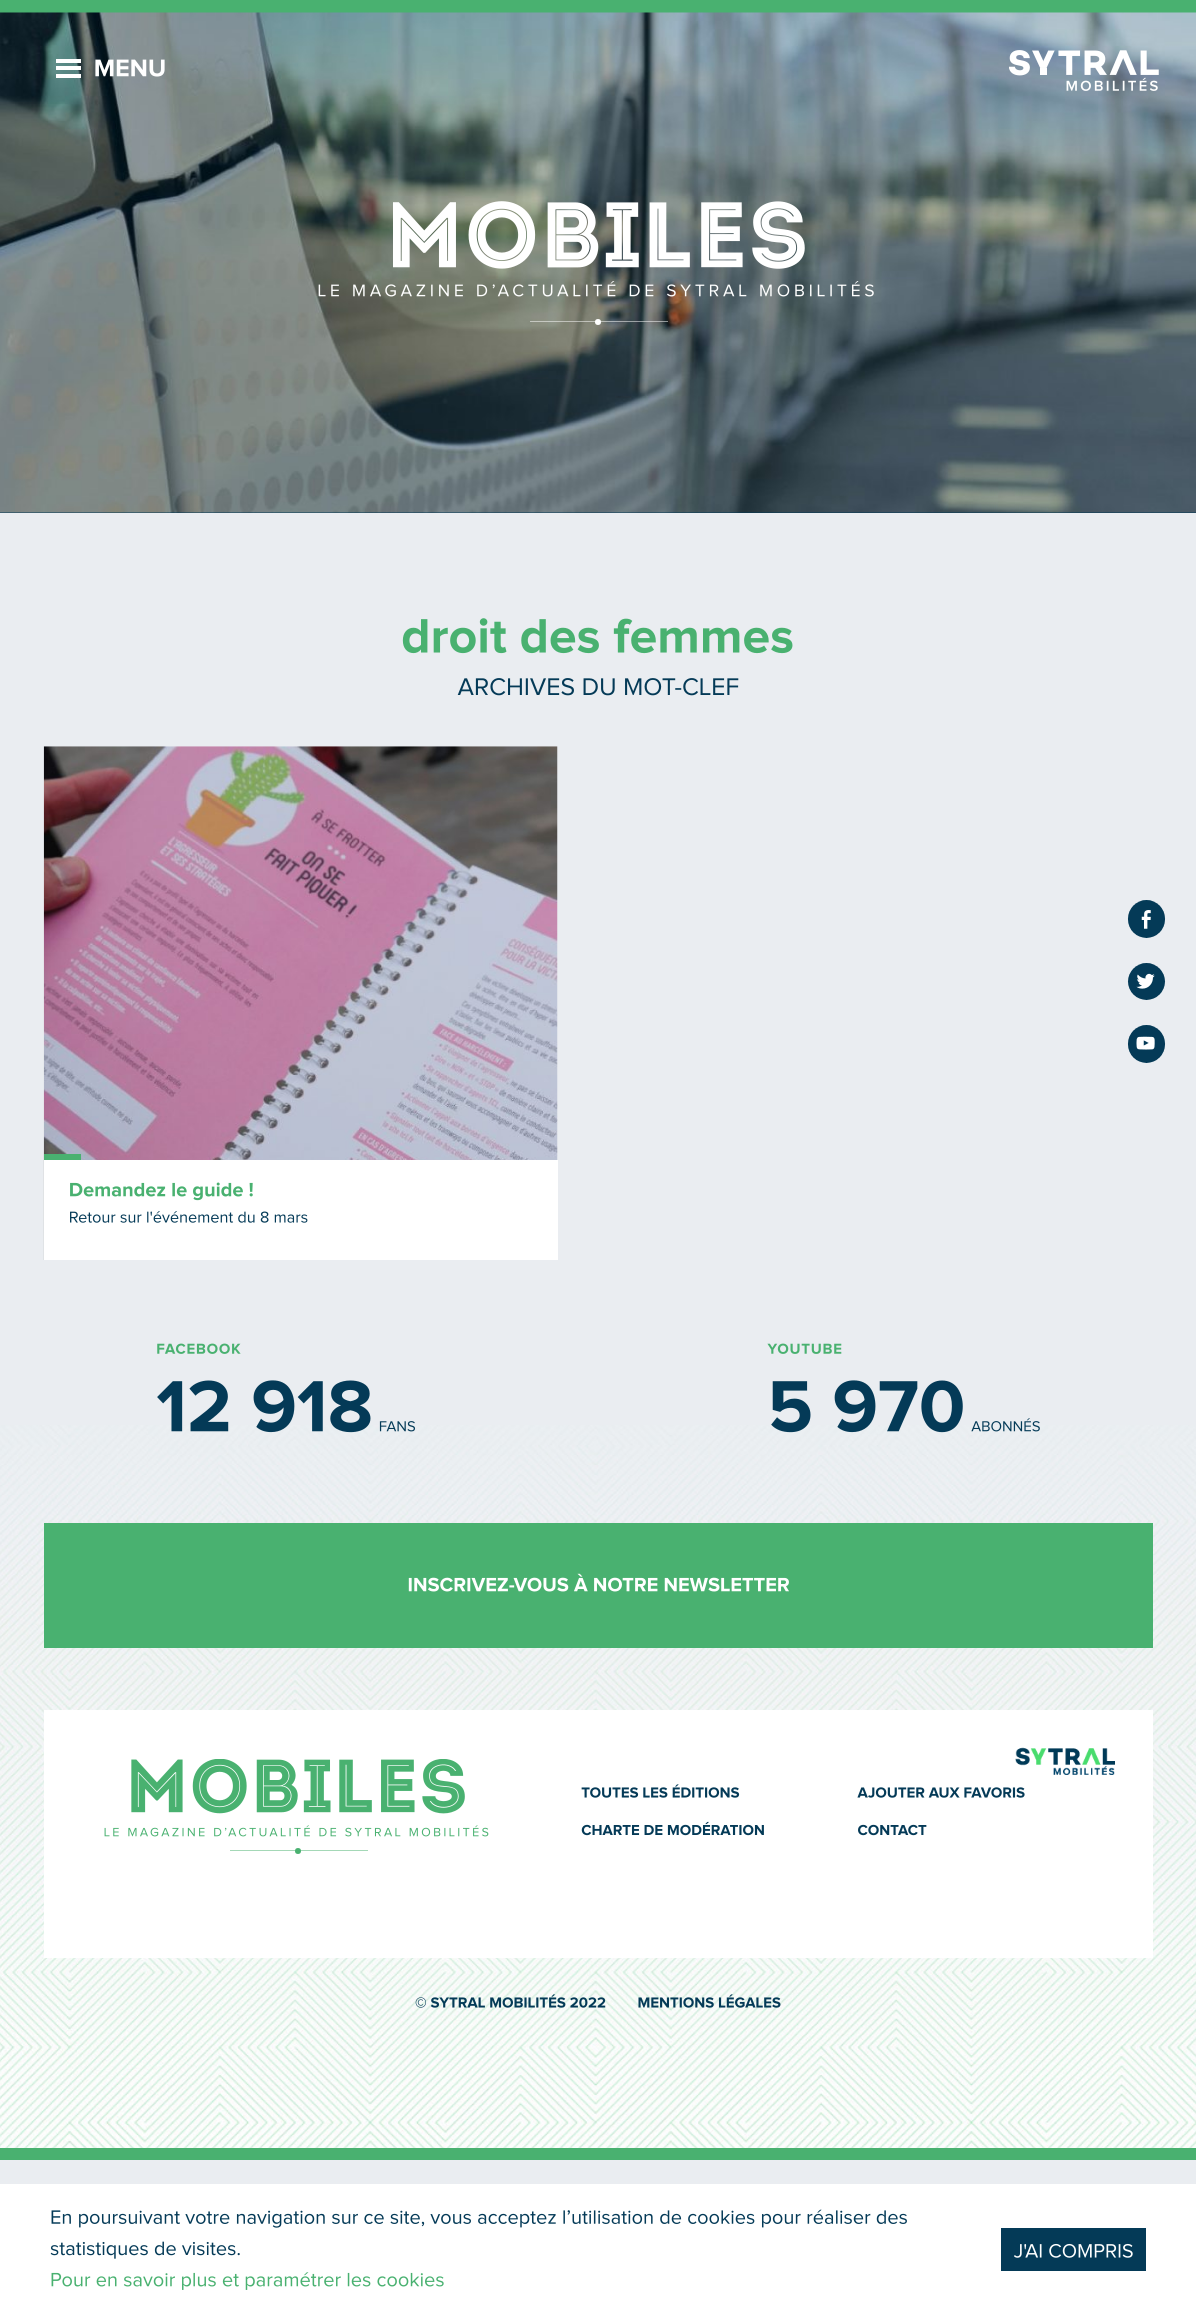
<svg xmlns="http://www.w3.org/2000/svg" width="1196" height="2314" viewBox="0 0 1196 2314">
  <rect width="100%" height="100%" fill="#eaedf1"/>
  <image x="0" y="1425" width="1196" height="723" href="img1.png"/>
  <rect x="0" y="0" width="1196" height="13" fill="#49b170"/>
  <rect x="0" y="512" width="1196" height="1" fill="#043a57"/>
  <image x="0" y="12" width="1196" height="501" href="img2.png"/>
  <image x="1009" y="50" width="150" height="41" href="img3.png"/>
  <image x="393" y="201" width="412" height="68" href="img4.png"/>
  <image x="318" y="281" width="556" height="16" href="img5.png"/>
  <circle cx="598" cy="322" r="3" fill="#ffffff"/>
  <rect x="530" y="321" width="138" height="1" fill="#ffffff" fill-opacity="0.5"/>
  <image x="402" y="618" width="391" height="36" href="img6.png"/>
  <image x="457" y="678" width="282" height="18" href="img7.png"/>
  <image x="43" y="746" width="515" height="514" href="img8.png"/>
  <rect x="44" y="1160" width="514" height="100" fill="#ffffff"/>
  <rect x="44" y="1154" width="37" height="6" fill="#49b170"/>
  <image x="70" y="1182" width="183" height="19" href="img9.png"/>
  <image x="70" y="1211" width="238" height="12" href="img10.png"/>
  <rect x="1128" y="900" width="37" height="38" rx="18.5" fill="#043a57"/>
  <image x="1141" y="910" width="10" height="19" href="img11.png"/>
  <circle cx="1146.5" cy="981.5" r="18.5" fill="#043a57"/>
  <image x="1136" y="973" width="19" height="16" href="img12.png"/>
  <rect x="1128" y="1025" width="37" height="38" rx="18.5" fill="#043a57"/>
  <image x="1136" y="1036" width="19" height="14" href="img13.png"/>
  <rect x="56" y="59" width="25" height="4" fill="#ffffff"/>
  <rect x="56" y="66" width="25" height="4" fill="#ffffff"/>
  <rect x="56" y="74" width="25" height="4" fill="#ffffff"/>
  <image x="95" y="59" width="70" height="18" href="img14.png"/>
  <rect x="0" y="2148" width="1196" height="12" fill="#49b170"/>
  <image x="157" y="1343" width="84" height="11" href="img15.png"/>
  <image x="157" y="1380" width="214" height="53" href="img16.png"/>
  <image x="379" y="1421" width="36" height="11" href="img17.png"/>
  <image x="767" y="1343" width="75" height="11" href="img18.png"/>
  <image x="771" y="1380" width="192" height="53" href="img19.png"/>
  <image x="971" y="1418" width="69" height="14" href="img20.png"/>
  <rect x="44" y="1523" width="1109" height="125" fill="#49b170"/>
  <image x="408" y="1573" width="381" height="19" href="img21.png"/>
  <rect x="44" y="1710" width="1109" height="248" fill="#ffffff"/>
  <image x="131" y="1759" width="334" height="55" href="img22.png"/>
  <image x="104" y="1825" width="385" height="12" href="img23.png"/>
  <circle cx="298" cy="1851" r="3" fill="#49b170"/>
  <rect x="230" y="1850" width="138" height="1" fill="#49b170" fill-opacity="0.5"/>
  <image x="581" y="1784" width="159" height="14" href="img24.png"/>
  <image x="857" y="1787" width="168" height="11" href="img25.png"/>
  <image x="581" y="1821" width="183" height="15" href="img26.png"/>
  <image x="858" y="1824" width="69" height="12" href="img27.png"/>
  <image x="1015" y="1747" width="100" height="28" href="img28.png"/>
  <image x="415" y="1994" width="191" height="14" href="img29.png"/>
  <image x="638" y="1994" width="143" height="14" href="img30.png"/>
  <rect x="0" y="2184" width="1196" height="130" fill="#ffffff"/>
  <image x="51" y="2209" width="856" height="19" href="img31.png"/>
  <image x="50" y="2241" width="190" height="18" href="img32.png"/>
  <image x="51" y="2272" width="393" height="18" href="img33.png"/>
  <rect x="1001" y="2228" width="145" height="43" fill="#043a57"/>
  <image x="1014" y="2243" width="119" height="15" href="img34.png"/>
</svg>
